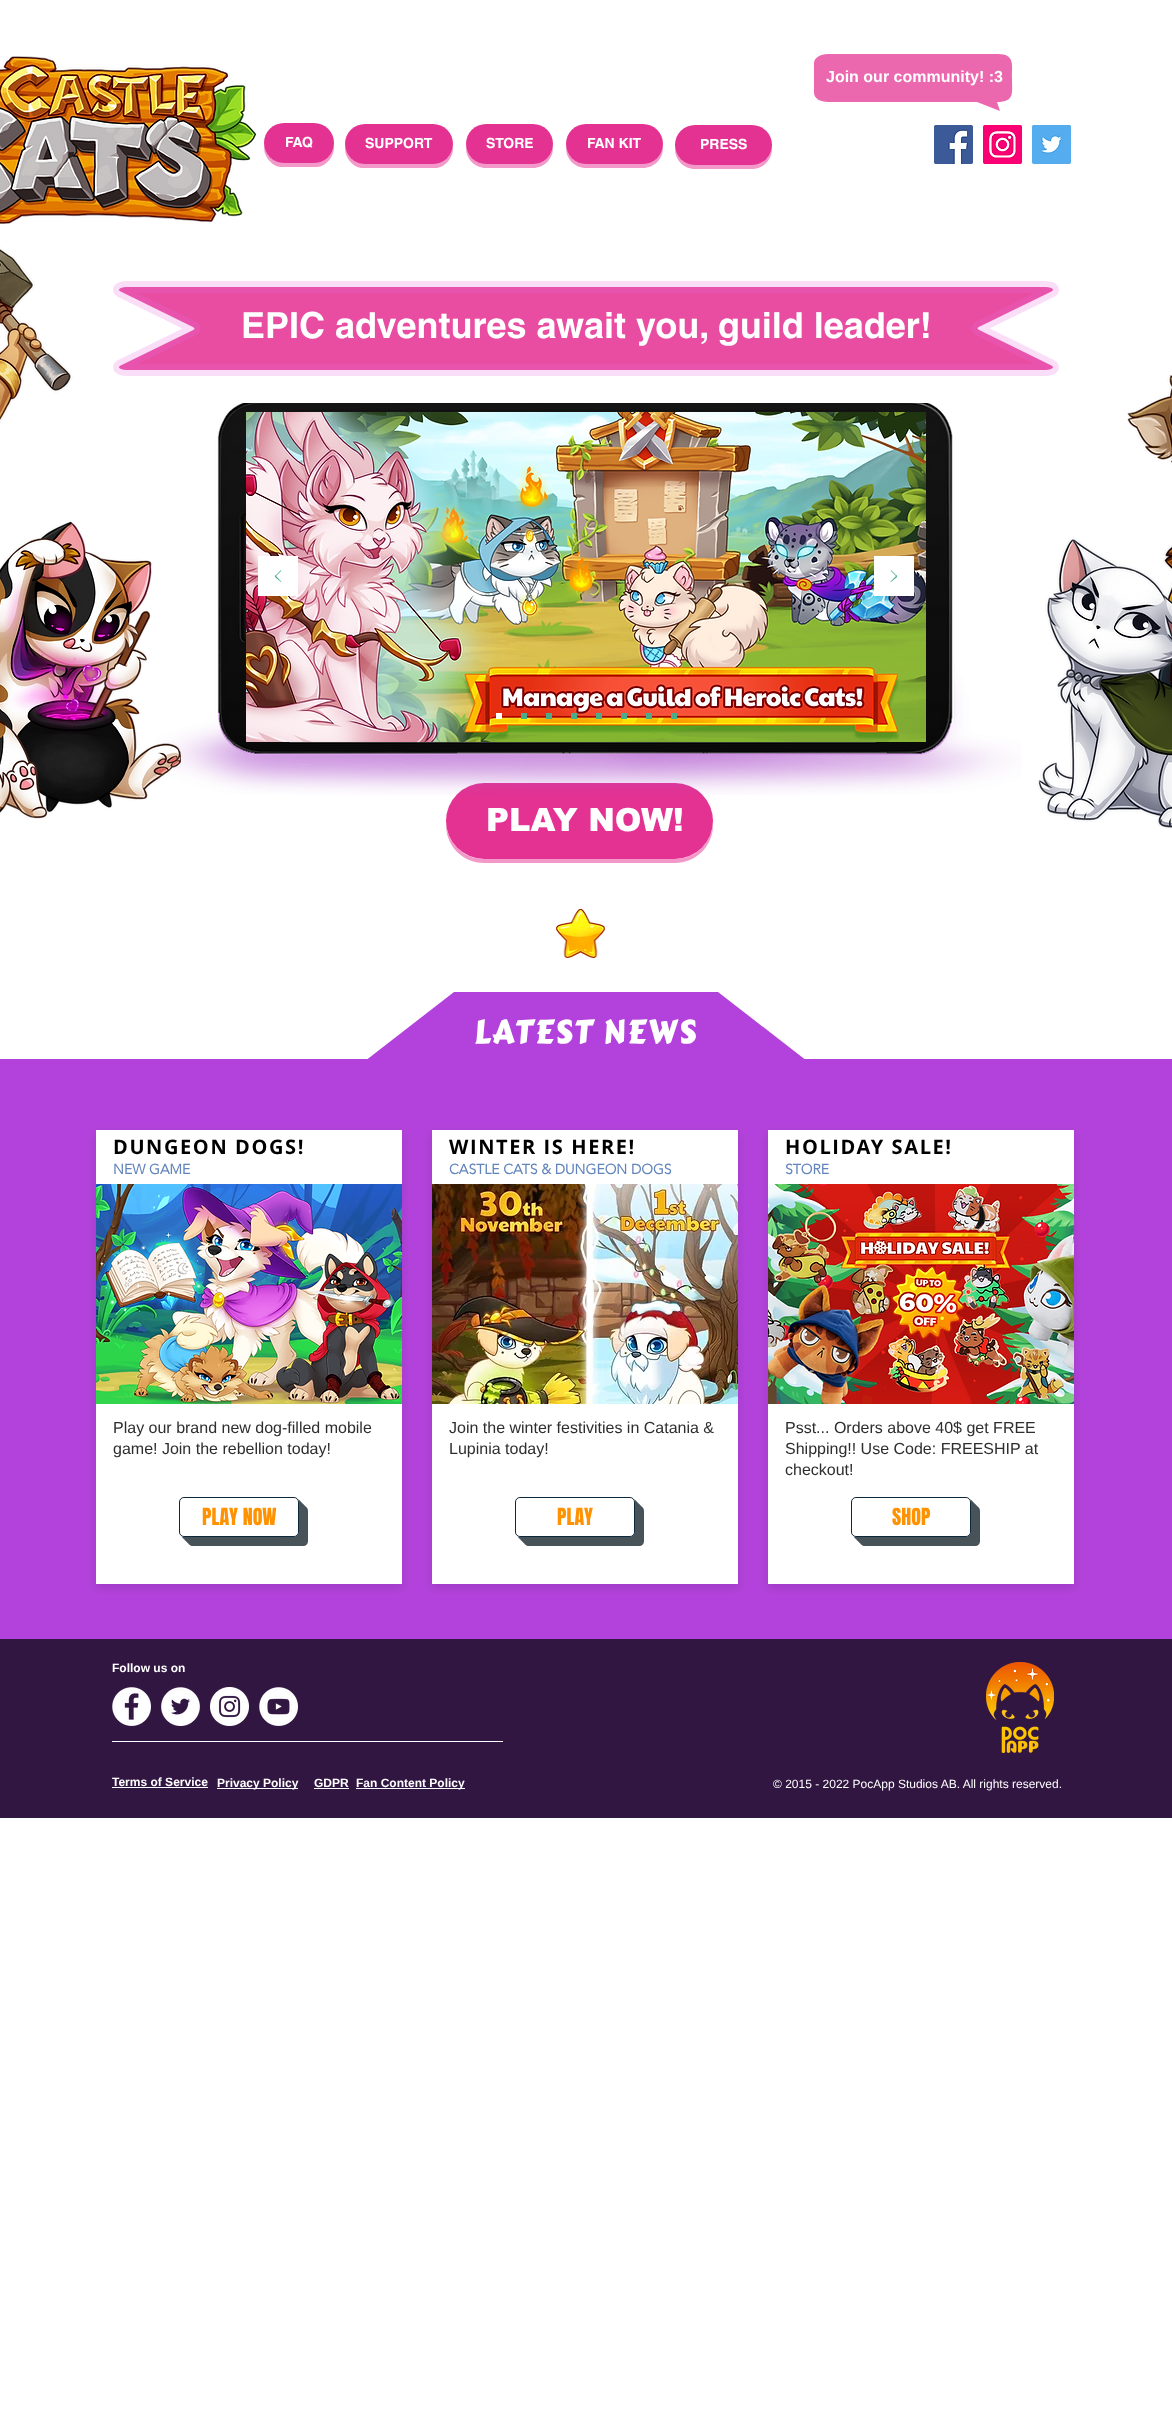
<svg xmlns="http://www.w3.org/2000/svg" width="1172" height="2417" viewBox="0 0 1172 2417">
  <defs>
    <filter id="blur1" x="-50%" y="-200%" width="200%" height="500%"><feGaussianBlur stdDeviation="5"/></filter>
  </defs>
  <rect width="100%" height="100%" fill="#ffffff"/>
  <image x="0" y="247" width="73" height="176" href="img1.png"/>
  <image x="0" y="56" width="256" height="168" href="img2.png"/>
  <path d="M998 54H828C820 54 814 58 814 63V93C814 98 820 102 828 102H977L1000 111L997 102C1015 102 1012 93 1012 78C1012 65 1015 54 998 54Z" fill="#eb68af"/>
  <text x="826" y="82" font-family="Liberation Sans" font-size="16" font-weight="bold" fill="#ffffff">Join our community! :3</text>
  <image x="934" y="125" width="39" height="39" href="img3.png"/>
  <image x="983" y="125" width="39" height="39" href="img4.png"/>
  <image x="1032" y="125" width="39" height="39" href="img5.png"/>
  <path d="M264 145C263 155 270 165 280 167H299H318C328 165 335 155 334 145C333 155 324 163 314 163H284C274 163 265 155 264 145Z" fill="#f299c9"/>
  <rect x="264" y="123" width="70" height="40" rx="20" fill="#e43292"/>
  <text x="285" y="147" font-family="helvetica" font-size="14" font-weight="bold" fill="#ffffff">FAQ</text>
  <path d="M345 146C344 156 351 166 361 168H376H437C447 166 454 156 453 146C452 156 443 164 433 164H365C355 164 346 156 345 146Z" fill="#f299c9"/>
  <rect x="345" y="124" width="108" height="40" rx="20" fill="#e43292"/>
  <text x="365" y="148" font-family="helvetica" font-size="14" font-weight="bold" fill="#ffffff">SUPPORT</text>
  <path d="M466 146V148C466 159 475 168 486 168H533C544 168 553 159 553 148V146C552 156 543 164 533 164H486C476 164 467 156 466 146Z" fill="#f299c9"/>
  <rect x="466" y="124" width="87" height="40" rx="20" fill="#e43292"/>
  <text x="486" y="148" font-family="helvetica" font-size="14" font-weight="bold" fill="#ffffff">STORE</text>
  <path d="M566 146V148C566 159 575 168 586 168H643C654 168 663 159 663 148V146C662 156 653 164 643 164H586C576 164 567 156 566 146Z" fill="#f299c9"/>
  <rect x="566" y="124" width="97" height="40" rx="20" fill="#e43292"/>
  <text x="587" y="148" font-family="helvetica" font-size="14" font-weight="bold" fill="#ffffff">FAN KIT</text>
  <path d="M675 147V149C675 160 684 169 695 169H752C763 169 772 160 772 149V147C771 157 762 165 752 165H695C685 165 676 157 675 147Z" fill="#f299c9"/>
  <rect x="675" y="125" width="97" height="40" rx="20" fill="#e43292"/>
  <text x="700" y="149" font-family="helvetica" font-size="14" font-weight="bold" fill="#ffffff">PRESS</text>
  <image x="113" y="281" width="946" height="95" href="img6.png"/>
  <text x="241" y="338" font-family="helvetica" font-size="36" font-weight="bold" fill="#ffffff">EPIC adventures await you, guild leader!</text>
  <path d="M446 823V825C446 846 463 863 484 863H675C696 863 713 846 713 825V823C712 843 695 859 675 859H484C464 859 447 843 446 823Z" fill="#f299c9"/>
  <rect x="446" y="783" width="267" height="76" rx="38" fill="#e43292"/>
  <image x="156" y="403" width="866" height="392" href="img7.png"/>
  <image x="246" y="412" width="680" height="330" href="img8.png"/>
  <rect x="258" y="556" width="40" height="40" fill="#ffffff"/>
  <path d="M281 582C282.5 582 280 580.5 276 576L281 571C281.5 570.5 281 570 281 570L276 575C274.5 576 274.5 576 275.5 577.5Z" fill="#49ad89"/>
  <rect x="874" y="556" width="40" height="40" fill="#ffffff"/>
  <path d="M891 582C889.5 582 892 580.5 896 576L891 571C890.5 570.5 891 570 891 570L896 575C897.5 576 897.5 576 896.5 577.5Z" fill="#49ad89"/>
  <rect x="496" y="713" width="6" height="6" fill="#ffffff"/>
  <rect x="521" y="713" width="6" height="6" fill="#49ad89"/>
  <rect x="546" y="713" width="6" height="6" fill="#49ad89"/>
  <rect x="571" y="713" width="6" height="6" fill="#49ad89"/>
  <rect x="596" y="713" width="6" height="6" fill="#49ad89"/>
  <rect x="621" y="713" width="6" height="6" fill="#49ad89"/>
  <rect x="646" y="713" width="6" height="6" fill="#49ad89"/>
  <rect x="671" y="713" width="6" height="6" fill="#49ad89"/>
  <text x="486" y="831" font-family="arial" font-size="32" font-weight="900" fill="#ffffff">PLAY NOW!</text>
  <image x="556" y="909" width="49" height="49" href="img9.png"/>
  <path d="M807 1061H365L454 992H718Z" fill="#b242db"/>
  <text x="474" y="1043" font-family="Carter One" font-size="33" letter-spacing="1.6" fill="#ffffff">LATEST NEWS</text>
  <image x="1127" y="375" width="45" height="90" href="img10.png"/>
  <image x="0" y="521" width="181" height="298" href="img11.png"/>
  <image x="1037" y="538" width="135" height="292" href="img12.png"/>
  <rect x="0" y="1059" width="1172" height="580" fill="#b242db"/>
  <rect x="96" y="1134" width="306" height="454" fill="#000000" fill-opacity="0.1" filter="url(#blur1)"/>
  <rect x="96" y="1130" width="306" height="454" fill="#ffffff"/>
  <text x="113" y="1154" font-family="Open Sans" font-size="20" font-weight="bold" letter-spacing="1.6" fill="#000000">DUNGEON DOGS!</text>
  <text x="113" y="1174" font-family="'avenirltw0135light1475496'" font-size="14" font-weight="bold" fill="#6285bc">NEW GAME</text>
  <image x="96" y="1184" width="306" height="220" href="img13.png"/>
  <text x="113" y="1433" font-family="Liberation Sans" font-size="16" fill="#2f2e2e">Play our brand new dog-filled mobile</text>
  <text x="113" y="1454" font-family="Liberation Sans" font-size="16" fill="#2f2e2e">game! Join the rebellion today!</text>
  <path d="M188 1537V1541C188 1544 190 1546 193 1546H303C306 1546 308 1544 308 1541V1511C308 1508 306 1506 303 1506H299V1532C299 1535 297 1537 294 1537Z" fill="#485259"/>
  <path d="M186 1537V1539C186 1542 188 1544 191 1544H301C304 1544 306 1542 306 1539V1509C306 1506 304 1504 301 1504H299V1532C299 1535 297 1537 294 1537Z" fill="#485259"/>
  <path d="M184 1537C184 1540 186 1542 189 1542H299C302 1542 304 1540 304 1537V1507C304 1504 302 1502 299 1502V1532C299 1535 297 1537 294 1537Z" fill="#485259"/>
  <path d="M182 1537C183 1539 185 1540 187 1540H297C300 1540 302 1538 302 1535V1505C302 1503 301 1501 299 1500V1533C297 1540 283 1537 276 1537Z" fill="#485259"/>
  <path d="M181 1536L184 1538H277C303 1538 300 1542 300 1518V1508C300 1505 301 1501 298 1499C299 1500 299 1501 299 1502V1532C299 1535 297 1537 294 1537H184C183 1537 182 1537 181 1536Z" fill="#485259"/>
  <rect x="179.5" y="1497.5" width="119" height="39" rx="4.5" fill="#ffffff" stroke="#0f293c"/>
  <text x="202" y="1525" font-family="Anton" font-size="20" fill="#ff9200">PLAY NOW</text>
  <rect x="432" y="1134" width="306" height="454" fill="#000000" fill-opacity="0.1" filter="url(#blur1)"/>
  <rect x="432" y="1130" width="306" height="454" fill="#ffffff"/>
  <text x="449" y="1154" font-family="Open Sans" font-size="20" font-weight="bold" letter-spacing="1.6" fill="#000000">WINTER IS HERE!</text>
  <text x="449" y="1174" font-family="'avenirltw0135light1475496'" font-size="14" font-weight="bold" fill="#6285bc">CASTLE CATS &amp; DUNGEON DOGS</text>
  <image x="432" y="1184" width="306" height="220" href="img14.png"/>
  <text x="449" y="1433" font-family="Liberation Sans" font-size="16" fill="#2f2e2e">Join the winter festivities in Catania &amp;</text>
  <text x="449" y="1454" font-family="Liberation Sans" font-size="16" fill="#2f2e2e">Lupinia today!</text>
  <path d="M524 1537V1541C524 1544 526 1546 529 1546H639C642 1546 644 1544 644 1541V1511C644 1508 642 1506 639 1506H635V1532C635 1535 633 1537 630 1537Z" fill="#485259"/>
  <path d="M522 1537V1539C522 1542 524 1544 527 1544H637C640 1544 642 1542 642 1539V1509C642 1506 640 1504 637 1504H635V1532C635 1535 633 1537 630 1537Z" fill="#485259"/>
  <path d="M520 1537C520 1540 522 1542 525 1542H635C638 1542 640 1540 640 1537V1507C640 1504 638 1502 635 1502V1532C635 1535 633 1537 630 1537Z" fill="#485259"/>
  <path d="M518 1537C519 1539 521 1540 523 1540H633C636 1540 638 1538 638 1535V1505C638 1503 637 1501 635 1500V1533C633 1540 619 1537 612 1537Z" fill="#485259"/>
  <path d="M517 1536L520 1538H613C639 1538 636 1542 636 1518V1508C636 1505 637 1501 634 1499C635 1500 635 1501 635 1502V1532C635 1535 633 1537 630 1537H520C519 1537 518 1537 517 1536Z" fill="#485259"/>
  <rect x="515.5" y="1497.5" width="119" height="39" rx="4.5" fill="#ffffff" stroke="#0f293c"/>
  <text x="557" y="1525" font-family="Anton" font-size="20" fill="#ff9200">PLAY</text>
  <rect x="768" y="1134" width="306" height="454" fill="#000000" fill-opacity="0.1" filter="url(#blur1)"/>
  <rect x="768" y="1130" width="306" height="454" fill="#ffffff"/>
  <text x="785" y="1154" font-family="Open Sans" font-size="20" font-weight="bold" letter-spacing="1.6" fill="#000000">HOLIDAY SALE!</text>
  <text x="785" y="1174" font-family="'avenirltw0135light1475496'" font-size="14" font-weight="bold" fill="#6285bc">STORE</text>
  <image x="768" y="1184" width="306" height="220" href="img15.png"/>
  <text x="785" y="1433" font-family="Liberation Sans" font-size="16" fill="#2f2e2e">Psst... Orders above 40$ get FREE</text>
  <text x="785" y="1454" font-family="Liberation Sans" font-size="16" fill="#2f2e2e">Shipping!! Use Code: FREESHIP at</text>
  <text x="785" y="1475" font-family="Liberation Sans" font-size="16" fill="#2f2e2e">checkout!</text>
  <path d="M860 1537V1541C860 1544 862 1546 865 1546H975C978 1546 980 1544 980 1541V1511C980 1508 978 1506 975 1506H971V1532C971 1535 969 1537 966 1537Z" fill="#485259"/>
  <path d="M858 1537V1539C858 1542 860 1544 863 1544H973C976 1544 978 1542 978 1539V1509C978 1506 976 1504 973 1504H971V1532C971 1535 969 1537 966 1537Z" fill="#485259"/>
  <path d="M856 1537C856 1540 858 1542 861 1542H971C974 1542 976 1540 976 1537V1507C976 1504 974 1502 971 1502V1532C971 1535 969 1537 966 1537Z" fill="#485259"/>
  <path d="M854 1537C855 1539 857 1540 859 1540H969C972 1540 974 1538 974 1535V1505C974 1503 973 1501 971 1500V1533C969 1540 955 1537 948 1537Z" fill="#485259"/>
  <path d="M853 1536L856 1538H949C975 1538 972 1542 972 1518V1508C972 1505 973 1501 970 1499C971 1500 971 1501 971 1502V1532C971 1535 969 1537 966 1537H856C855 1537 854 1537 853 1536Z" fill="#485259"/>
  <rect x="851.5" y="1497.5" width="119" height="39" rx="4.5" fill="#ffffff" stroke="#0f293c"/>
  <text x="892" y="1525" font-family="Anton" font-size="20" fill="#ff9200">SHOP</text>
  <rect x="0" y="1639" width="1172" height="179" fill="#311642"/>
  <image x="986" y="1662" width="68" height="91" href="img16.png"/>
  <text x="112" y="1672" font-family="Liberation Sans" font-size="12" font-weight="bold" fill="#ffffff">Follow us on</text>
  <image x="112" y="1687" width="39" height="39" href="img17.png"/>
  <image x="161" y="1687" width="39" height="39" href="img18.png"/>
  <image x="210" y="1687" width="39" height="39" href="img19.png"/>
  <image x="259" y="1687" width="39" height="39" href="img20.png"/>
  <rect x="112" y="1741" width="391" height="1" fill="#ffffff"/>
  <text x="112" y="1786" font-family="Liberation Sans" font-size="12" font-weight="bold" fill="#ffffff">Terms of Service</text>
  <rect x="112" y="1787" width="96" height="1" fill="#ffffff"/>
  <rect x="217" y="1788" width="81" height="1" fill="#ffffff"/>
  <text x="217" y="1787" font-family="Liberation Sans" font-size="12" font-weight="bold" fill="#ffffff">Privacy Policy</text>
  <text x="314" y="1787" font-family="Liberation Sans" font-size="12" font-weight="bold" fill="#ffffff">GDPR</text>
  <rect x="314" y="1788" width="35" height="1" fill="#ffffff"/>
  <text x="773" y="1788" font-family="Liberation Sans" font-size="12" fill="#ffffff">© 2015 - 2022 PocApp Studios AB. All rights reserved.</text>
  <rect x="356" y="1788" width="109" height="1" fill="#ffffff"/>
  <text x="356" y="1787" font-family="Liberation Sans" font-size="12" font-weight="bold" fill="#ffffff">Fan Content Policy</text>
</svg>
